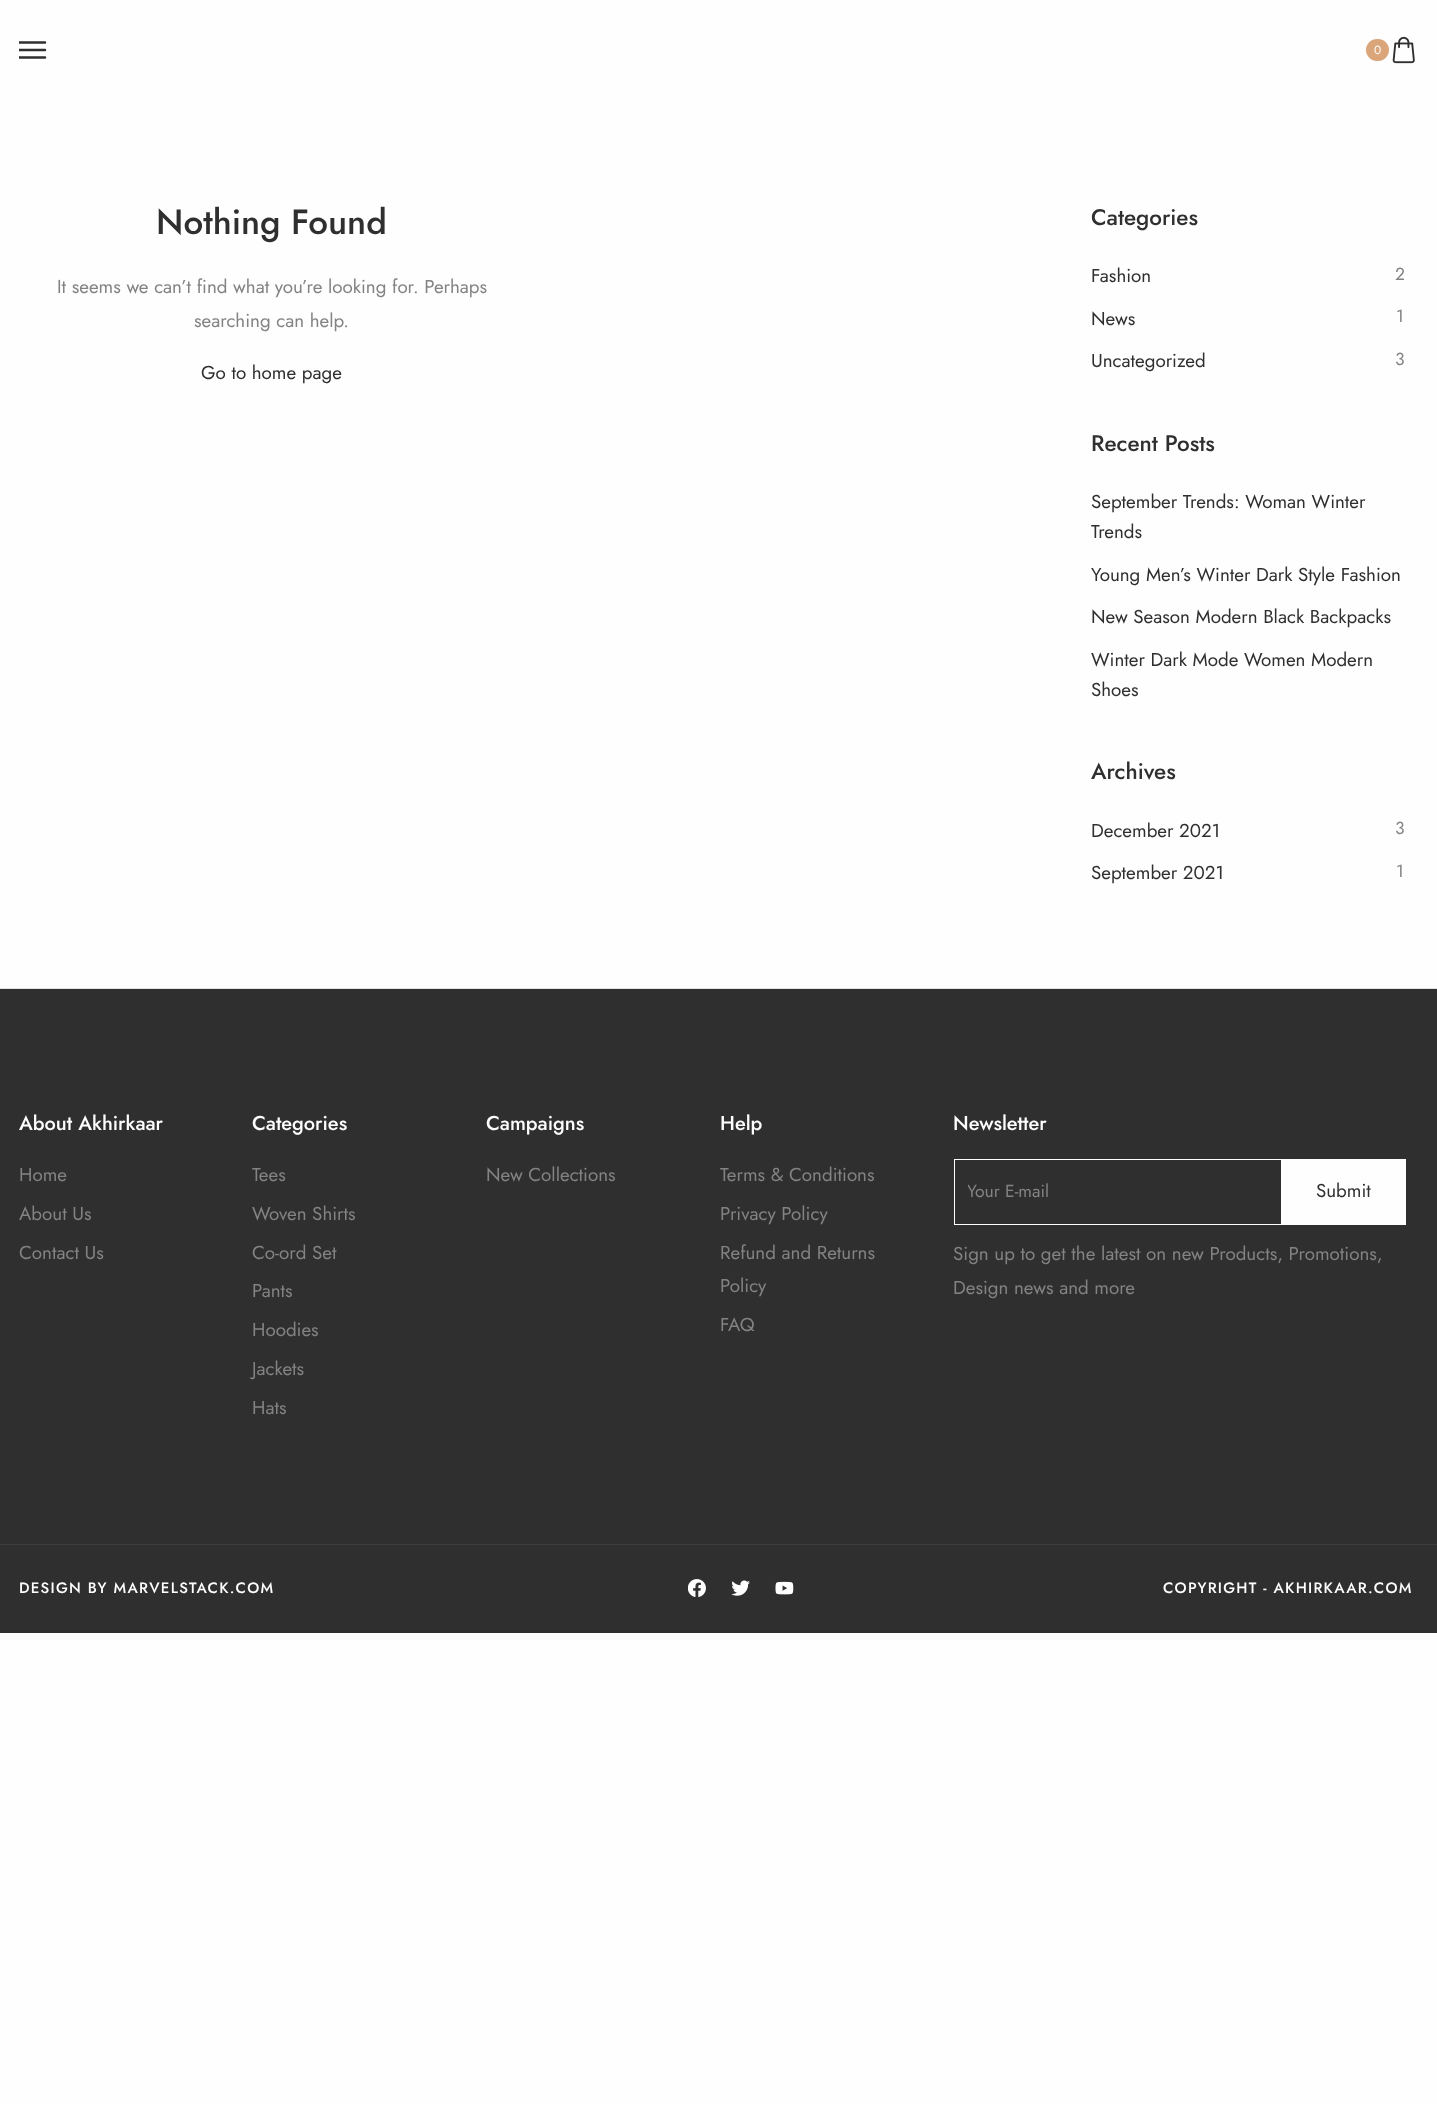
<svg xmlns="http://www.w3.org/2000/svg" width="1437" height="2104" viewBox="0 0 1437 2104">
  <defs>
    <clipPath id="clip1"><rect x="19" y="35" width="30" height="30"/></clipPath>
    <clipPath id="clip2"><rect x="968" y="1179" width="425" height="25"/></clipPath>
  </defs>
  <rect width="100%" height="100%" fill="#fefefe"/>
  <g clip-path="url(#clip1)">
    <path d="M19 50H45M19 42.5H45M19 57.5H45" fill="none" stroke="#2f2f2f" stroke-width="2.5" stroke-linecap="round" stroke-linejoin="round"/>
  </g>
  <rect x="1366" y="39" width="23" height="22" rx="11" fill="#dba57a"/>
  <text x="1374" y="54" font-family="Jost" font-size="12" fill="#fefefe">0</text>
  <image x="1392" y="36" width="23" height="28" href="img1.png"/>
  <text x="156" y="234" font-family="Jost" font-size="35" font-weight="500" fill="#2f2f2f">Nothing Found</text>
  <text x="57" y="293" font-family="Jost" font-size="18.75" fill="#838383">It seems we can’t find what you’re looking for. Perhaps</text>
  <text x="194" y="327" font-family="Jost" font-size="18.75" fill="#838383">searching can help.</text>
  <text x="201" y="379" font-family="Jost" font-size="18.75" fill="#2f2f2f">Go to home page</text>
  <text x="1091" y="225" font-family="Jost" font-size="22.5" font-weight="500" fill="#2f2f2f">Categories</text>
  <text x="1091" y="282" font-family="Jost" font-size="18.75" fill="#2f2f2f">Fashion</text>
  <text x="1395" y="280" font-family="Jost" font-size="17.5" fill="#838383">2</text>
  <text x="1091" y="325" font-family="Jost" font-size="18.75" fill="#2f2f2f">News</text>
  <text x="1396" y="322" font-family="Jost" font-size="17.5" fill="#838383">1</text>
  <text x="1091" y="367" font-family="Jost" font-size="18.75" fill="#2f2f2f">Uncategorized</text>
  <text x="1395" y="365" font-family="Jost" font-size="17.5" fill="#838383">3</text>
  <text x="1091" y="451" font-family="Jost" font-size="22.5" font-weight="500" fill="#2f2f2f">Recent Posts</text>
  <text x="1091" y="508" font-family="Jost" font-size="18.75" fill="#2f2f2f">September Trends: Woman Winter</text>
  <text x="1091" y="538" font-family="Jost" font-size="18.75" fill="#2f2f2f">Trends</text>
  <text x="1091" y="581" font-family="Jost" font-size="18.75" fill="#2f2f2f">Young Men’s Winter Dark Style Fashion</text>
  <text x="1091" y="623" font-family="Jost" font-size="18.75" fill="#2f2f2f">New Season Modern Black Backpacks</text>
  <text x="1091" y="666" font-family="Jost" font-size="18.75" fill="#2f2f2f">Winter Dark Mode Women Modern</text>
  <text x="1091" y="696" font-family="Jost" font-size="18.75" fill="#2f2f2f">Shoes</text>
  <text x="1091" y="779" font-family="Jost" font-size="22.5" font-weight="500" fill="#2f2f2f">Archives</text>
  <text x="1091" y="837" font-family="Jost" font-size="18.75" fill="#2f2f2f">December 2021</text>
  <text x="1395" y="834" font-family="Jost" font-size="17.5" fill="#838383">3</text>
  <text x="1091" y="879" font-family="Jost" font-size="18.75" fill="#2f2f2f">September 2021</text>
  <text x="1396" y="877" font-family="Jost" font-size="17.5" fill="#838383">1</text>
  <rect x="0" y="989" width="1437" height="555" fill="#2f2f2f"/>
  <rect x="0" y="988" width="1437" height="1" fill="#e2e3e4"/>
  <text x="19" y="1130" font-family="Jost" font-size="20" font-weight="500" fill="#fefefe">About Akhirkaar</text>
  <text x="19" y="1181" font-family="Jost" font-size="18.75" fill="#838383">Home</text>
  <text x="19" y="1220" font-family="Jost" font-size="18.75" fill="#838383">About Us</text>
  <text x="19" y="1259" font-family="Jost" font-size="18.75" fill="#838383">Contact Us</text>
  <text x="252" y="1130" font-family="Jost" font-size="20" font-weight="500" fill="#fefefe">Categories</text>
  <text x="252" y="1181" font-family="Jost" font-size="18.75" fill="#838383">Tees</text>
  <text x="252" y="1220" font-family="Jost" font-size="18.75" fill="#838383">Woven Shirts</text>
  <text x="252" y="1259" font-family="Jost" font-size="18.75" fill="#838383">Co-ord Set</text>
  <text x="252" y="1297" font-family="Jost" font-size="18.75" fill="#838383">Pants</text>
  <text x="252" y="1336" font-family="Jost" font-size="18.75" fill="#838383">Hoodies</text>
  <text x="252" y="1375" font-family="Jost" font-size="18.75" fill="#838383">Jackets</text>
  <text x="252" y="1414" font-family="Jost" font-size="18.75" fill="#838383">Hats</text>
  <text x="486" y="1130" font-family="Jost" font-size="20" font-weight="500" fill="#fefefe">Campaigns</text>
  <text x="486" y="1181" font-family="Jost" font-size="18.75" fill="#838383">New Collections</text>
  <text x="720" y="1130" font-family="Jost" font-size="20" font-weight="500" fill="#fefefe">Help</text>
  <text x="720" y="1181" font-family="Jost" font-size="18.75" fill="#838383">Terms &amp; Conditions</text>
  <text x="720" y="1220" font-family="Jost" font-size="18.75" fill="#838383">Privacy Policy</text>
  <text x="720" y="1259" font-family="Jost" font-size="18.75" fill="#838383">Refund and Returns</text>
  <text x="720" y="1292" font-family="Jost" font-size="18.75" fill="#838383">Policy</text>
  <text x="720" y="1331" font-family="Jost" font-size="18.75" fill="#838383">FAQ</text>
  <text x="953" y="1130" font-family="Jost" font-size="20" font-weight="500" fill="#fefefe">Newsletter</text>
  <rect x="954.5" y="1159.5" width="451" height="65" fill="none" stroke="#fefefe"/>
  <g clip-path="url(#clip2)">
    <text x="967" y="1197" font-family="Jost" font-size="17.5" fill="#838383">Your E-mail</text>
  </g>
  <rect x="1281" y="1160" width="124" height="64" fill="#fefefe"/>
  <text x="1316" y="1197" font-family="Jost" font-size="18.75" fill="#2f2f2f">Submit</text>
  <text x="953" y="1260" font-family="Jost" font-size="18.75" fill="#838383">Sign up to get the latest on new Products, Promotions,</text>
  <text x="953" y="1294" font-family="Jost" font-size="18.75" fill="#838383">Design news and more</text>
  <rect x="0" y="1545" width="1437" height="88" fill="#2f2f2f"/>
  <rect x="0" y="1544" width="1437" height="1" fill="#3f3f3f"/>
  <text x="19" y="1593" font-family="Jost" font-size="15" font-weight="500" letter-spacing="1.25" fill="#fefefe">DESIGN BY MARVELSTACK.COM</text>
  <image x="688" y="1579" width="18" height="18" href="img2.png"/>
  <image x="731" y="1580" width="19" height="16" href="img3.png"/>
  <image x="775" y="1581" width="19" height="14" href="img4.png"/>
  <text x="1163" y="1593" font-family="Jost" font-size="15" font-weight="500" letter-spacing="1.25" fill="#fefefe">COPYRIGHT - AKHIRKAAR.COM</text>
</svg>
